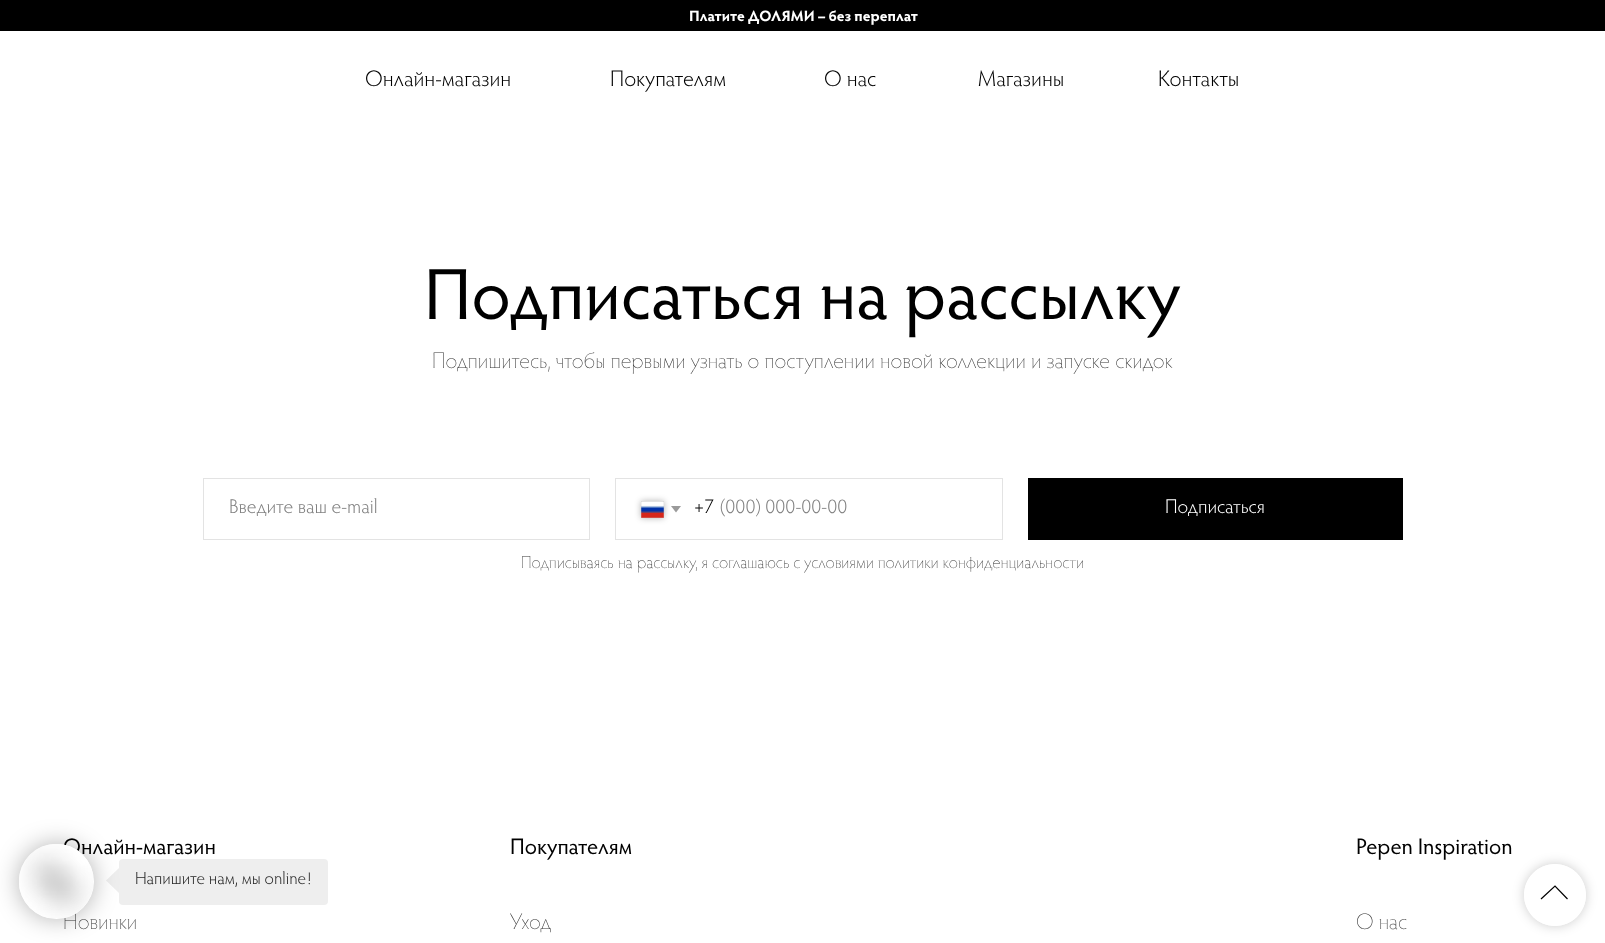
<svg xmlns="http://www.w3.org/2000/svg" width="1605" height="943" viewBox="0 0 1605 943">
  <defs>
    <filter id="blur1" x="-50%" y="-200%" width="200%" height="500%"><feGaussianBlur stdDeviation="12.5"/></filter>
    <clipPath id="clip1"><path d="M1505 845H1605V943H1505ZM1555 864C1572 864 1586 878 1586 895C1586 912 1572 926 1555 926C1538 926 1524 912 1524 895C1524 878 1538 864 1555 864Z" clip-rule="evenodd"/></clipPath>
    <filter id="blur2" x="-50%" y="-200%" width="200%" height="500%"><feGaussianBlur stdDeviation="6"/></filter>
    <filter id="blur3" x="-50%" y="-200%" width="200%" height="500%"><feGaussianBlur stdDeviation="3"/></filter>
  </defs>
  <rect width="100%" height="100%" fill="#ffffff"/>
  <rect x="0" y="0" width="1605" height="31" fill="#000000"/>
  <text x="689" y="21" font-family="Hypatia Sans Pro" font-size="15" font-weight="bold" fill="#ffffff">Платите ДОЛЯМИ – без переплат</text>
  <text x="365" y="86" font-family="Hypatia Sans Pro" font-size="22.5" font-weight="300" fill="#000000">Онлайн-магазин</text>
  <text x="610" y="86" font-family="Hypatia Sans Pro" font-size="22.5" font-weight="300" fill="#000000">Покупателям</text>
  <text x="824" y="86" font-family="Hypatia Sans Pro" font-size="22.5" font-weight="300" fill="#000000">О нас</text>
  <text x="978" y="86" font-family="Hypatia Sans Pro" font-size="22.5" font-weight="300" fill="#000000">Магазины</text>
  <text x="1158" y="86" font-family="Hypatia Sans Pro" font-size="22.5" font-weight="300" fill="#000000">Контакты</text>
  <rect x="119" y="859" width="209" height="46" rx="4" fill="#eeeeee"/>
  <path d="M119 868V893L106 880.5Z" fill="#eeeeee"/>
  <rect x="19" y="844" width="75" height="75" rx="37.5" fill="#000000" fill-opacity="0.3" filter="url(#blur1)"/>
  <text x="63" y="854" font-family="Hypatia Sans Pro" font-size="22.5" fill="#000000">Онлайн-магазин</text>
  <text x="63" y="929" font-family="Hypatia Sans Pro" font-size="22.5" font-weight="200" fill="#333333">Новинки</text>
  <circle cx="56.5" cy="881.5" r="37.5" fill="#ffffff"/>
  <image x="19" y="844" width="74" height="74" href="img1.png"/>
  <text x="135" y="884" font-family="Hypatia Sans Pro" font-size="17.5" font-weight="300" fill="#262626">Напишите нам, мы online!</text>
  <g clip-path="url(#clip1)">
    <rect x="1524" y="864" width="62" height="62" rx="31" fill="#000000" fill-opacity="0.2" filter="url(#blur2)"/>
  </g>
  <circle cx="1555" cy="895" r="31" fill="#ffffff" fill-opacity="0.9"/>
  <path d="M1541 899L1555 886L1567.5 899" fill="none" stroke="#000000" stroke-width="1.2"/>
  <text x="424" y="319" font-family="Hypatia Sans Pro" font-size="72.5" fill="#000000">Подписаться на рассылку</text>
  <text x="432" y="368" font-family="Hypatia Sans Pro" font-size="22.5" font-weight="200" fill="#333333">Подпишитесь, чтобы первыми узнать о поступлении новой коллекции и запуске скидок</text>
  <rect x="203.5" y="478.5" width="386" height="61" fill="none" stroke="#e3e3e3"/>
  <text x="229" y="513" font-family="Hypatia Sans Pro" font-size="20" font-weight="300" fill="#808080">Введите ваш e-mail</text>
  <rect x="615.5" y="478.5" width="387" height="61" fill="none" stroke="#e3e3e3"/>
  <rect x="641" y="501" width="23" height="17" fill="#000000" fill-opacity="0.3" filter="url(#blur3)"/>
  <rect x="641" y="501" width="23" height="17" fill="#c5c5c5"/>
  <image x="641" y="501" width="23" height="17" href="img2.png"/>
  <path d="M671 506H681L676 512.5Z" fill="#9a9a9a"/>
  <text x="694" y="513" font-family="Hypatia Sans Pro" font-size="20" font-weight="300" fill="#000000">+7</text>
  <text x="720" y="513" font-family="Hypatia Sans Pro" font-size="20" font-weight="300" fill="#808080">(000) 000-00-00</text>
  <rect x="1028" y="478" width="375" height="62" fill="#000000"/>
  <text x="1165" y="513" font-family="Hypatia Sans Pro" font-size="20" font-weight="300" fill="#ffffff">Подписаться</text>
  <text x="521" y="568" font-family="Hypatia Sans Pro" font-size="17.5" font-weight="200" fill="#333333">Подписываясь на рассылку, я соглашаюсь с условиями политики конфиденциальности</text>
  <text x="510" y="854" font-family="Hypatia Sans Pro" font-size="22.5" fill="#000000">Покупателям</text>
  <text x="1356" y="854" font-family="Hypatia Sans Pro" font-size="22.5" fill="#000000">Pepen Inspiration</text>
  <text x="510" y="929" font-family="Hypatia Sans Pro" font-size="22.5" font-weight="200" fill="#333333">Уход</text>
  <text x="1356" y="929" font-family="Hypatia Sans Pro" font-size="22.5" font-weight="200" fill="#333333">О нас</text>
</svg>
